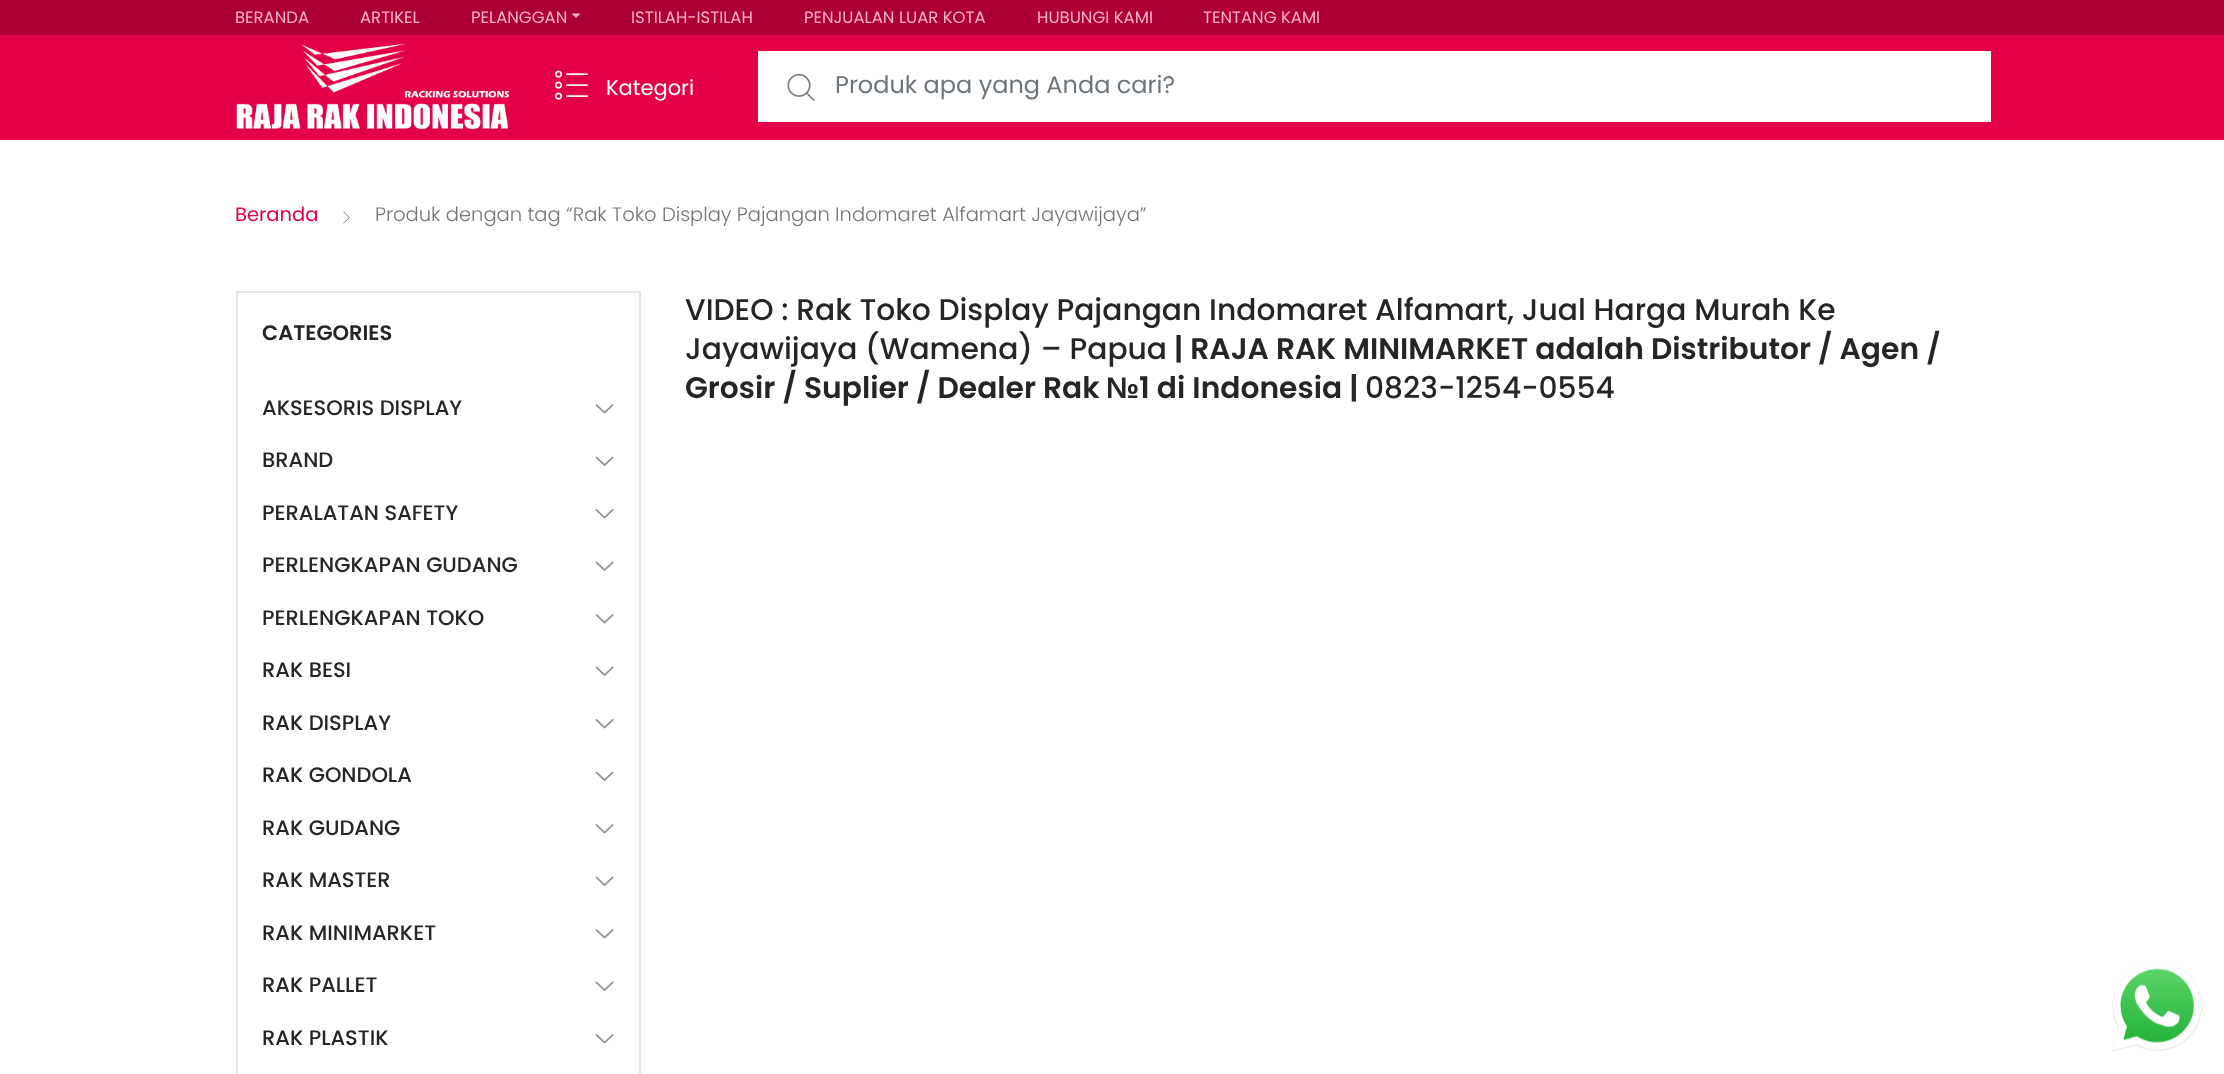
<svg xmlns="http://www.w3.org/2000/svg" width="2224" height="1074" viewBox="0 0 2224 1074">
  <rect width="100%" height="100%" fill="#ffffff"/>
  <rect x="0" y="0" width="2224" height="35" fill="#ac0035"/>
  <text x="235" y="23" font-family="Poppins" font-size="16.5" fill="#ffb0c9">BERANDA</text>
  <text x="360" y="23" font-family="Poppins" font-size="16.5" fill="#ffb0c9">ARTIKEL</text>
  <text x="471" y="23" font-family="Poppins" font-size="16.5" fill="#ffb0c9">PELANGGAN</text>
  <path d="M571.5 13.5H580.5L576 18Z" fill="#ffb0c9"/>
  <text x="631" y="23" font-family="Poppins" font-size="16.5" fill="#ffb0c9">ISTILAH-ISTILAH</text>
  <text x="804" y="23" font-family="Poppins" font-size="16.5" fill="#ffb0c9">PENJUALAN LUAR KOTA</text>
  <text x="1037" y="23" font-family="Poppins" font-size="16.5" fill="#ffb0c9">HUBUNGI KAMI</text>
  <text x="1203" y="23" font-family="Poppins" font-size="16.5" fill="#ffb0c9">TENTANG KAMI</text>
  <rect x="0" y="35" width="2224" height="105" fill="#e40046"/>
  <image x="236" y="43" width="273" height="87" href="img1.png"/>
  <image x="555" y="70" width="33" height="30" href="img2.png"/>
  <text x="606" y="95" font-family="Poppins" font-size="21" fill="#ffffff">Kategori</text>
  <rect x="758" y="51" width="1233" height="71" fill="#ffffff"/>
  <image x="787" y="73" width="28" height="28" href="img3.png"/>
  <text x="835" y="93" font-family="Poppins" font-size="24" fill="#6c757d">Produk apa yang Anda cari?</text>
  <text x="235" y="221" font-family="Poppins" font-size="19.5" fill="#e40046">Beranda</text>
  <image x="343" y="211" width="7" height="13" href="img4.png"/>
  <text x="375" y="221" font-family="Poppins" font-size="19.5" font-weight="300" fill="#757575">Produk dengan tag “Rak Toko Display Pajangan Indomaret Alfamart Jayawijaya”</text>
  <rect x="237" y="292" width="403" height="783" fill="none" stroke="#e6e6e6" stroke-width="2"/>
  <text x="262" y="340" font-family="Poppins" font-size="21" font-weight="600" fill="#252525">CATEGORIES</text>
  <text x="262" y="415" font-family="Poppins" font-size="21" font-weight="500" fill="#252525">AKSESORIS DISPLAY</text>
  <image x="595" y="404" width="19" height="10" href="img5.png"/>
  <text x="262" y="467" font-family="Poppins" font-size="21" font-weight="500" fill="#252525">BRAND</text>
  <image x="595" y="456" width="19" height="10" href="img6.png"/>
  <text x="262" y="520" font-family="Poppins" font-size="21" font-weight="500" fill="#252525">PERALATAN SAFETY</text>
  <image x="595" y="509" width="19" height="10" href="img5.png"/>
  <text x="262" y="572" font-family="Poppins" font-size="21" font-weight="500" fill="#252525">PERLENGKAPAN GUDANG</text>
  <image x="595" y="561" width="19" height="10" href="img6.png"/>
  <text x="262" y="625" font-family="Poppins" font-size="21" font-weight="500" fill="#252525">PERLENGKAPAN TOKO</text>
  <image x="595" y="614" width="19" height="10" href="img5.png"/>
  <text x="262" y="677" font-family="Poppins" font-size="21" font-weight="500" fill="#252525">RAK BESI</text>
  <image x="595" y="666" width="19" height="10" href="img6.png"/>
  <text x="262" y="730" font-family="Poppins" font-size="21" font-weight="500" fill="#252525">RAK DISPLAY</text>
  <image x="595" y="719" width="19" height="10" href="img5.png"/>
  <text x="262" y="782" font-family="Poppins" font-size="21" font-weight="500" fill="#252525">RAK GONDOLA</text>
  <image x="595" y="771" width="19" height="10" href="img6.png"/>
  <text x="262" y="835" font-family="Poppins" font-size="21" font-weight="500" fill="#252525">RAK GUDANG</text>
  <image x="595" y="824" width="19" height="10" href="img5.png"/>
  <text x="262" y="887" font-family="Poppins" font-size="21" font-weight="500" fill="#252525">RAK MASTER</text>
  <image x="595" y="876" width="19" height="10" href="img6.png"/>
  <text x="262" y="940" font-family="Poppins" font-size="21" font-weight="500" fill="#252525">RAK MINIMARKET</text>
  <image x="595" y="929" width="19" height="10" href="img5.png"/>
  <text x="262" y="992" font-family="Poppins" font-size="21" font-weight="500" fill="#252525">RAK PALLET</text>
  <image x="595" y="981" width="19" height="10" href="img6.png"/>
  <text x="262" y="1045" font-family="Poppins" font-size="21" font-weight="500" fill="#252525">RAK PLASTIK</text>
  <image x="595" y="1034" width="19" height="10" href="img5.png"/>
  <text x="685" y="320" font-family="Poppins" font-size="29.75" font-weight="500" fill="#252525">VIDEO : Rak Toko Display Pajangan Indomaret Alfamart, Jual Harga Murah Ke</text>
  <text x="685" y="359" font-family="Poppins" font-size="29.75" font-weight="500" fill="#252525">Jayawijaya (Wamena) – Papua</text>
  <text x="1174" y="359" font-family="Poppins" font-size="29.75" font-weight="600" fill="#252525">| RAJA RAK MINIMARKET adalah Distributor / Agen /</text>
  <text x="685" y="398" font-family="Poppins" font-size="29.75" font-weight="600" fill="#252525">Grosir / Suplier / Dealer Rak</text>
  <text x="1106" y="398" font-family="Liberation Sans" font-size="29.75" font-weight="bold" fill="#252525">№</text>
  <text x="1139" y="398" font-family="Poppins" font-size="29.75" font-weight="600" fill="#252525">1 di Indonesia |</text>
  <text x="1365" y="398" font-family="Poppins" font-size="29.75" font-weight="500" fill="#252525">0823-1254-0554</text>
  <image x="2112" y="961" width="90" height="91" href="img7.png"/>
</svg>
